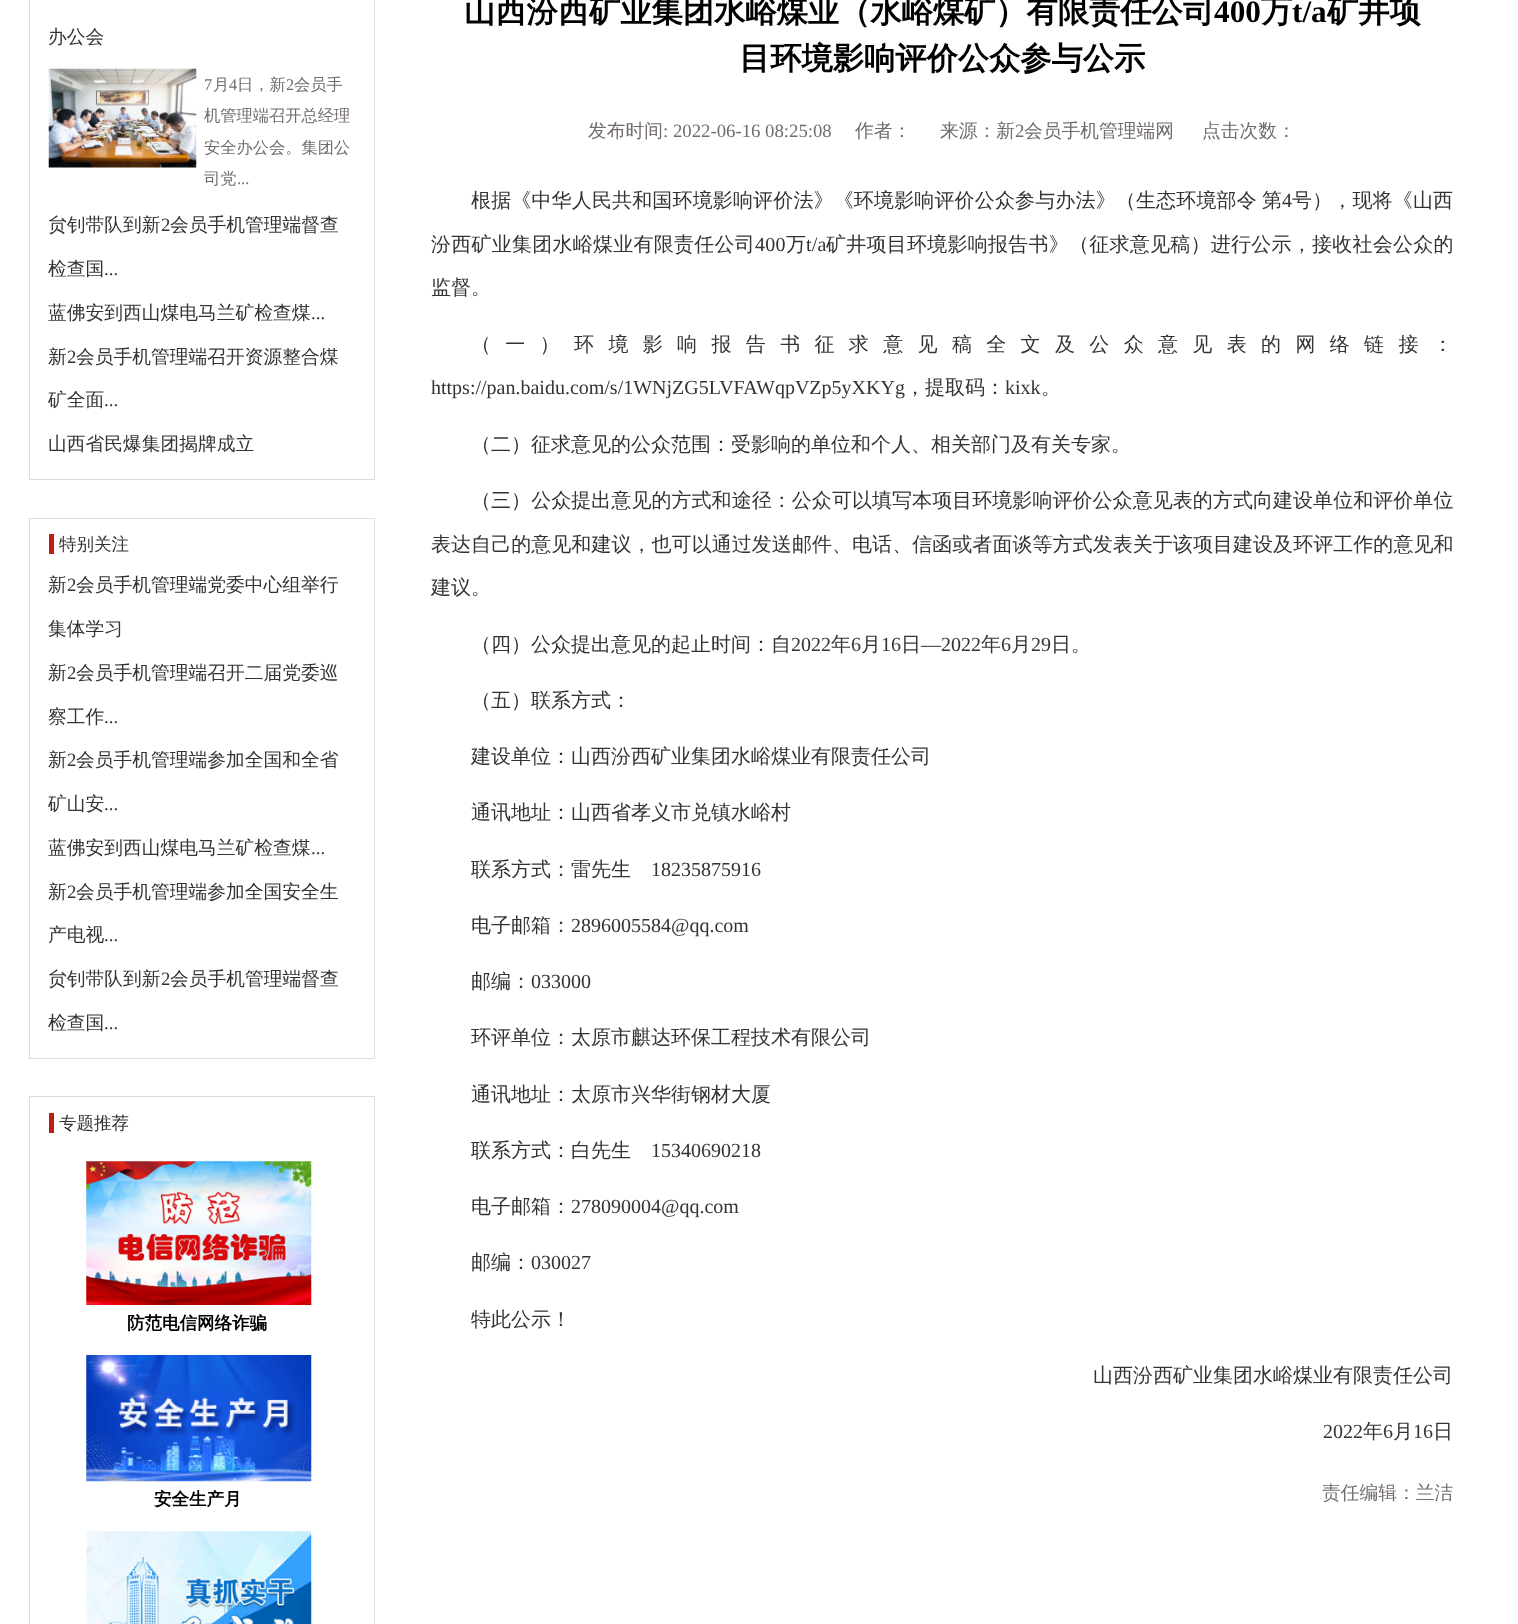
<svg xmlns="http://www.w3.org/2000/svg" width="1518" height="1624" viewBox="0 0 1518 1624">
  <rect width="100%" height="100%" fill="#ffffff"/>
  <rect x="29.5" y="-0.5" width="345" height="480" fill="none" stroke="#dddddd"/>
  <text x="48" y="43" font-family="WenQuanYi Zen Hei" font-size="18.75" font-weight="500" fill="#333333">办公会</text>
  <image x="48" y="68" width="149" height="100" href="img1.png"/>
  <text x="204" y="90" font-family="Liberation Serif" font-size="16.25" fill="#726b6b">7</text>
  <text x="213" y="90" font-family="WenQuanYi Zen Hei" font-size="16.25" font-weight="500" fill="#726b6b">月</text>
  <text x="229" y="90" font-family="Liberation Serif" font-size="16.25" fill="#726b6b">4</text>
  <text x="237" y="90" font-family="WenQuanYi Zen Hei" font-size="16.25" font-weight="500" fill="#726b6b">日，新</text>
  <text x="286" y="90" font-family="Liberation Serif" font-size="16.25" fill="#726b6b">2</text>
  <text x="294" y="90" font-family="WenQuanYi Zen Hei" font-size="16.25" font-weight="500" fill="#726b6b">会员手</text>
  <text x="204" y="121" font-family="WenQuanYi Zen Hei" font-size="16.25" font-weight="500" fill="#726b6b">机管理端召开总经理</text>
  <text x="204" y="153" font-family="WenQuanYi Zen Hei" font-size="16.25" font-weight="500" fill="#726b6b">安全办公会。集团公</text>
  <text x="204" y="184" font-family="WenQuanYi Zen Hei" font-size="16.25" font-weight="500" fill="#726b6b">司党</text>
  <text x="237" y="184" font-family="Liberation Serif" font-size="16.25" fill="#726b6b">...</text>
  <text x="48" y="231" font-family="WenQuanYi Zen Hei" font-size="18.75" font-weight="500" fill="#333333">贠钊带队到新</text>
  <text x="161" y="231" font-family="Liberation Serif" font-size="18.75" fill="#333333">2</text>
  <text x="170" y="231" font-family="WenQuanYi Zen Hei" font-size="18.75" font-weight="500" fill="#333333">会员手机管理端督查</text>
  <text x="48" y="275" font-family="WenQuanYi Zen Hei" font-size="18.75" font-weight="500" fill="#333333">检查国</text>
  <text x="104" y="275" font-family="Liberation Serif" font-size="18.75" fill="#333333">...</text>
  <text x="48" y="319" font-family="WenQuanYi Zen Hei" font-size="18.75" font-weight="500" fill="#333333">蓝佛安到西山煤电马兰矿检查煤</text>
  <text x="311" y="319" font-family="Liberation Serif" font-size="18.75" fill="#333333">...</text>
  <text x="48" y="363" font-family="WenQuanYi Zen Hei" font-size="18.75" font-weight="500" fill="#333333">新</text>
  <text x="67" y="363" font-family="Liberation Serif" font-size="18.75" fill="#333333">2</text>
  <text x="76" y="363" font-family="WenQuanYi Zen Hei" font-size="18.75" font-weight="500" fill="#333333">会员手机管理端召开资源整合煤</text>
  <text x="48" y="406" font-family="WenQuanYi Zen Hei" font-size="18.75" font-weight="500" fill="#333333">矿全面</text>
  <text x="104" y="406" font-family="Liberation Serif" font-size="18.75" fill="#333333">...</text>
  <text x="48" y="450" font-family="WenQuanYi Zen Hei" font-size="18.75" font-weight="500" fill="#333333">山西省民爆集团揭牌成立</text>
  <rect x="29.5" y="518.5" width="345" height="540" fill="none" stroke="#dddddd"/>
  <text x="59" y="550" font-family="WenQuanYi Zen Hei" font-size="17.5" font-weight="500" fill="#333333">特别关注</text>
  <rect x="49" y="534" width="5" height="20" fill="#be1e12"/>
  <text x="48" y="591" font-family="WenQuanYi Zen Hei" font-size="18.75" font-weight="500" fill="#333333">新</text>
  <text x="67" y="591" font-family="Liberation Serif" font-size="18.75" fill="#333333">2</text>
  <text x="76" y="591" font-family="WenQuanYi Zen Hei" font-size="18.75" font-weight="500" fill="#333333">会员手机管理端党委中心组举行</text>
  <text x="48" y="635" font-family="WenQuanYi Zen Hei" font-size="18.75" font-weight="500" fill="#333333">集体学习</text>
  <text x="48" y="679" font-family="WenQuanYi Zen Hei" font-size="18.75" font-weight="500" fill="#333333">新</text>
  <text x="67" y="679" font-family="Liberation Serif" font-size="18.75" fill="#333333">2</text>
  <text x="76" y="679" font-family="WenQuanYi Zen Hei" font-size="18.75" font-weight="500" fill="#333333">会员手机管理端召开二届党委巡</text>
  <text x="48" y="723" font-family="WenQuanYi Zen Hei" font-size="18.75" font-weight="500" fill="#333333">察工作</text>
  <text x="104" y="723" font-family="Liberation Serif" font-size="18.75" fill="#333333">...</text>
  <text x="48" y="766" font-family="WenQuanYi Zen Hei" font-size="18.75" font-weight="500" fill="#333333">新</text>
  <text x="67" y="766" font-family="Liberation Serif" font-size="18.75" fill="#333333">2</text>
  <text x="76" y="766" font-family="WenQuanYi Zen Hei" font-size="18.75" font-weight="500" fill="#333333">会员手机管理端参加全国和全省</text>
  <text x="48" y="810" font-family="WenQuanYi Zen Hei" font-size="18.75" font-weight="500" fill="#333333">矿山安</text>
  <text x="104" y="810" font-family="Liberation Serif" font-size="18.75" fill="#333333">...</text>
  <text x="48" y="854" font-family="WenQuanYi Zen Hei" font-size="18.75" font-weight="500" fill="#333333">蓝佛安到西山煤电马兰矿检查煤</text>
  <text x="311" y="854" font-family="Liberation Serif" font-size="18.75" fill="#333333">...</text>
  <text x="48" y="898" font-family="WenQuanYi Zen Hei" font-size="18.75" font-weight="500" fill="#333333">新</text>
  <text x="67" y="898" font-family="Liberation Serif" font-size="18.75" fill="#333333">2</text>
  <text x="76" y="898" font-family="WenQuanYi Zen Hei" font-size="18.75" font-weight="500" fill="#333333">会员手机管理端参加全国安全生</text>
  <text x="48" y="941" font-family="WenQuanYi Zen Hei" font-size="18.75" font-weight="500" fill="#333333">产电视</text>
  <text x="104" y="941" font-family="Liberation Serif" font-size="18.75" fill="#333333">...</text>
  <text x="48" y="985" font-family="WenQuanYi Zen Hei" font-size="18.75" font-weight="500" fill="#333333">贠钊带队到新</text>
  <text x="161" y="985" font-family="Liberation Serif" font-size="18.75" fill="#333333">2</text>
  <text x="170" y="985" font-family="WenQuanYi Zen Hei" font-size="18.75" font-weight="500" fill="#333333">会员手机管理端督查</text>
  <text x="48" y="1029" font-family="WenQuanYi Zen Hei" font-size="18.75" font-weight="500" fill="#333333">检查国</text>
  <text x="104" y="1029" font-family="Liberation Serif" font-size="18.75" fill="#333333">...</text>
  <rect x="29.5" y="1096.5" width="345" height="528" fill="none" stroke="#dddddd"/>
  <text x="59" y="1129" font-family="WenQuanYi Zen Hei" font-size="17.5" font-weight="500" fill="#333333">专题推荐</text>
  <rect x="49" y="1113" width="5" height="20" fill="#be1e12"/>
  <image x="86" y="1161" width="226" height="144" href="img2.png"/>
  <text x="127" y="1329" font-family="WenQuanYi Zen Hei" font-size="17.5" font-weight="bold" fill="#000000">防范电信网络诈骗</text>
  <image x="86" y="1355" width="226" height="127" href="img3.png"/>
  <text x="154" y="1505" font-family="WenQuanYi Zen Hei" font-size="17.5" font-weight="bold" fill="#000000">安全生产月</text>
  <image x="86" y="1531" width="226" height="93" href="img4.png"/>
  <text x="464" y="22" font-family="WenQuanYi Zen Hei" font-size="31.25" font-weight="bold" fill="#000000">山西汾西矿业集团水峪煤业（水峪煤矿）有限责任公司</text>
  <text x="1214" y="22" font-family="Liberation Serif" font-size="31.25" font-weight="bold" fill="#000000">400</text>
  <text x="1261" y="22" font-family="WenQuanYi Zen Hei" font-size="31.25" font-weight="bold" fill="#000000">万</text>
  <text x="1292" y="22" font-family="Liberation Serif" font-size="31.25" font-weight="bold" fill="#000000">t/a</text>
  <text x="1327" y="22" font-family="WenQuanYi Zen Hei" font-size="31.25" font-weight="bold" fill="#000000">矿井项</text>
  <text x="739" y="69" font-family="WenQuanYi Zen Hei" font-size="31.25" font-weight="bold" fill="#000000">目环境影响评价公众参与公示</text>
  <text x="588" y="137" font-family="WenQuanYi Zen Hei" font-size="18.75" font-weight="500" fill="#726b6b">发布时间</text>
  <text x="663" y="137" font-family="Liberation Serif" font-size="18.75" fill="#726b6b">: 2022-06-16 08:25:08</text>
  <text x="855" y="137" font-family="WenQuanYi Zen Hei" font-size="18.75" font-weight="500" fill="#726b6b">作者：</text>
  <text x="940" y="137" font-family="WenQuanYi Zen Hei" font-size="18.75" font-weight="500" fill="#726b6b">来源：新</text>
  <text x="1015" y="137" font-family="Liberation Serif" font-size="18.75" fill="#726b6b">2</text>
  <text x="1024" y="137" font-family="WenQuanYi Zen Hei" font-size="18.75" font-weight="500" fill="#726b6b">会员手机管理端网</text>
  <text x="1202" y="137" font-family="WenQuanYi Zen Hei" font-size="18.75" font-weight="500" fill="#726b6b">点击次数：</text>
  <text x="471" y="207" word-spacing="-1" font-family="WenQuanYi Zen Hei" font-size="20" font-weight="500" letter-spacing="0.15" fill="#333333">根据《中华人民共和国环境影响评价法》《环境影响评价公众参与办法》（生态环境部令 第</text>
  <text x="1282" y="207" font-family="Liberation Serif" font-size="20" letter-spacing="0.15" fill="#333333">4</text>
  <text x="1292" y="207" font-family="WenQuanYi Zen Hei" font-size="20" font-weight="500" letter-spacing="0.15" fill="#333333">号），现将《山西</text>
  <text x="431" y="251" font-family="WenQuanYi Zen Hei" font-size="20" font-weight="500" letter-spacing="0.25" fill="#333333">汾西矿业集团水峪煤业有限责任公司</text>
  <text x="755" y="251" font-family="Liberation Serif" font-size="20" letter-spacing="0.25" fill="#333333">400</text>
  <text x="786" y="251" font-family="WenQuanYi Zen Hei" font-size="20" font-weight="500" letter-spacing="0.25" fill="#333333">万</text>
  <text x="806" y="251" font-family="Liberation Serif" font-size="20" letter-spacing="0.25" fill="#333333">t/a</text>
  <text x="826" y="251" font-family="WenQuanYi Zen Hei" font-size="20" font-weight="500" letter-spacing="0.25" fill="#333333">矿井项目环境影响报告书》（征求意见稿）进行公示，接收社会公众的</text>
  <text x="431" y="294" font-family="WenQuanYi Zen Hei" font-size="20" font-weight="500" fill="#333333">监督。</text>
  <text x="471" y="351" font-family="WenQuanYi Zen Hei" font-size="20" font-weight="500" letter-spacing="14.35" fill="#333333">（一）环境影响报告书征求意见稿全文及公众意见表的网络链接：</text>
  <text x="431" y="394" font-family="Liberation Serif" font-size="20" fill="#333333">https://pan.baidu.com/s/1WNjZG5LVFAWqpVZp5yXKYg</text>
  <text x="905" y="394" font-family="WenQuanYi Zen Hei" font-size="20" font-weight="500" fill="#333333">，提取码：</text>
  <text x="1005" y="394" font-family="Liberation Serif" font-size="20" fill="#333333">kixk</text>
  <text x="1041" y="394" font-family="WenQuanYi Zen Hei" font-size="20" font-weight="500" fill="#333333">。</text>
  <text x="471" y="451" font-family="WenQuanYi Zen Hei" font-size="20" font-weight="500" fill="#333333">（二）征求意见的公众范围：受影响的单位和个人、相关部门及有关专家。</text>
  <text x="471" y="507" font-family="WenQuanYi Zen Hei" font-size="20" font-weight="500" letter-spacing="0.05" fill="#333333">（三）公众提出意见的方式和途径：公众可以填写本项目环境影响评价公众意见表的方式向建设单位和评价单位</text>
  <text x="431" y="551" font-family="WenQuanYi Zen Hei" font-size="20" font-weight="500" letter-spacing="0.05" fill="#333333">表达自己的意见和建议，也可以通过发送邮件、电话、信函或者面谈等方式发表关于该项目建设及环评工作的意见和</text>
  <text x="431" y="594" font-family="WenQuanYi Zen Hei" font-size="20" font-weight="500" fill="#333333">建议。</text>
  <text x="471" y="651" font-family="WenQuanYi Zen Hei" font-size="20" font-weight="500" fill="#333333">（四）公众提出意见的起止时间：自</text>
  <text x="791" y="651" font-family="Liberation Serif" font-size="20" fill="#333333">2022</text>
  <text x="831" y="651" font-family="WenQuanYi Zen Hei" font-size="20" font-weight="500" fill="#333333">年</text>
  <text x="851" y="651" font-family="Liberation Serif" font-size="20" fill="#333333">6</text>
  <text x="861" y="651" font-family="WenQuanYi Zen Hei" font-size="20" font-weight="500" fill="#333333">月</text>
  <text x="881" y="651" font-family="Liberation Serif" font-size="20" fill="#333333">16</text>
  <text x="901" y="651" font-family="WenQuanYi Zen Hei" font-size="20" font-weight="500" fill="#333333">日</text>
  <text x="921" y="651" font-family="Liberation Serif" font-size="20" fill="#333333">—2022</text>
  <text x="981" y="651" font-family="WenQuanYi Zen Hei" font-size="20" font-weight="500" fill="#333333">年</text>
  <text x="1001" y="651" font-family="Liberation Serif" font-size="20" fill="#333333">6</text>
  <text x="1011" y="651" font-family="WenQuanYi Zen Hei" font-size="20" font-weight="500" fill="#333333">月</text>
  <text x="1031" y="651" font-family="Liberation Serif" font-size="20" fill="#333333">29</text>
  <text x="1051" y="651" font-family="WenQuanYi Zen Hei" font-size="20" font-weight="500" fill="#333333">日。</text>
  <text x="471" y="707" font-family="WenQuanYi Zen Hei" font-size="20" font-weight="500" fill="#333333">（五）联系方式：</text>
  <text x="471" y="763" font-family="WenQuanYi Zen Hei" font-size="20" font-weight="500" fill="#333333">建设单位：山西汾西矿业集团水峪煤业有限责任公司</text>
  <text x="471" y="819" font-family="WenQuanYi Zen Hei" font-size="20" font-weight="500" fill="#333333">通讯地址：山西省孝义市兑镇水峪村</text>
  <text x="471" y="876" font-family="WenQuanYi Zen Hei" font-size="20" font-weight="500" fill="#333333">联系方式：雷先生</text>
  <text x="651" y="876" font-family="Liberation Serif" font-size="20" fill="#333333">18235875916</text>
  <text x="471" y="932" font-family="WenQuanYi Zen Hei" font-size="20" font-weight="500" fill="#333333">电子邮箱：</text>
  <text x="571" y="932" font-family="Liberation Serif" font-size="20" fill="#333333">2896005584@qq.com</text>
  <text x="471" y="988" font-family="WenQuanYi Zen Hei" font-size="20" font-weight="500" fill="#333333">邮编：</text>
  <text x="531" y="988" font-family="Liberation Serif" font-size="20" fill="#333333">033000</text>
  <text x="471" y="1044" font-family="WenQuanYi Zen Hei" font-size="20" font-weight="500" fill="#333333">环评单位：太原市麒达环保工程技术有限公司</text>
  <text x="471" y="1101" font-family="WenQuanYi Zen Hei" font-size="20" font-weight="500" fill="#333333">通讯地址：太原市兴华街钢材大厦</text>
  <text x="471" y="1157" font-family="WenQuanYi Zen Hei" font-size="20" font-weight="500" fill="#333333">联系方式：白先生</text>
  <text x="651" y="1157" font-family="Liberation Serif" font-size="20" fill="#333333">15340690218</text>
  <text x="471" y="1213" font-family="WenQuanYi Zen Hei" font-size="20" font-weight="500" fill="#333333">电子邮箱：</text>
  <text x="571" y="1213" font-family="Liberation Serif" font-size="20" fill="#333333">278090004@qq.com</text>
  <text x="471" y="1269" font-family="WenQuanYi Zen Hei" font-size="20" font-weight="500" fill="#333333">邮编：</text>
  <text x="531" y="1269" font-family="Liberation Serif" font-size="20" fill="#333333">030027</text>
  <text x="471" y="1326" font-family="WenQuanYi Zen Hei" font-size="20" font-weight="500" fill="#333333">特此公示！</text>
  <text x="1093" y="1382" font-family="WenQuanYi Zen Hei" font-size="20" font-weight="500" fill="#333333">山西汾西矿业集团水峪煤业有限责任公司</text>
  <text x="1323" y="1438" font-family="Liberation Serif" font-size="20" fill="#333333">2022</text>
  <text x="1363" y="1438" font-family="WenQuanYi Zen Hei" font-size="20" font-weight="500" fill="#333333">年</text>
  <text x="1383" y="1438" font-family="Liberation Serif" font-size="20" fill="#333333">6</text>
  <text x="1393" y="1438" font-family="WenQuanYi Zen Hei" font-size="20" font-weight="500" fill="#333333">月</text>
  <text x="1413" y="1438" font-family="Liberation Serif" font-size="20" fill="#333333">16</text>
  <text x="1433" y="1438" font-family="WenQuanYi Zen Hei" font-size="20" font-weight="500" fill="#333333">日</text>
  <text x="1322" y="1499" font-family="WenQuanYi Zen Hei" font-size="18.75" font-weight="500" fill="#726b6b">责任编辑：兰洁</text>
</svg>
